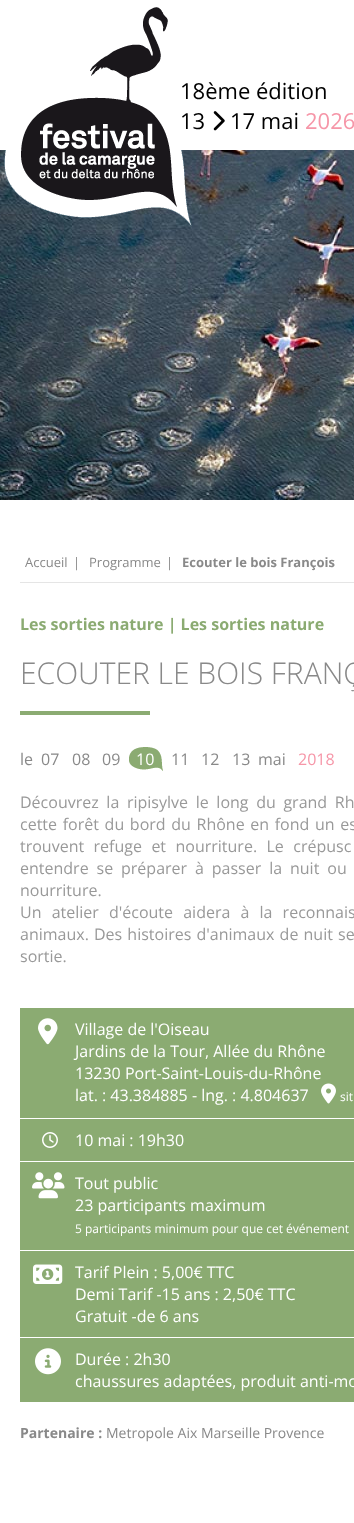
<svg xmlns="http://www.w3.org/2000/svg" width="354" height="1523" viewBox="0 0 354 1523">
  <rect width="100%" height="100%" fill="#ffffff"/>
  <image x="0" y="150" width="354" height="350" href="img3.png"/>
  <image x="4" y="7" width="188" height="219" href="img1.png"/>
  <text x="180" y="99" font-family="Open Sans" font-size="22" fill="#000000">18ème édition</text>
  <text x="180" y="129" font-family="Open Sans" font-size="22" fill="#000000">13</text>
  <image x="213" y="111" width="12" height="20" href="img2.png"/>
  <text x="230" y="129" font-family="Open Sans" font-size="22" fill="#000000">17 mai</text>
  <text x="305" y="129" font-family="Open Sans" font-size="22" fill="#f696a8">2026</text>
  <rect x="20" y="582" width="334" height="1" fill="#e5e5e5"/>
  <text x="25" y="567" font-family="Open Sans" font-size="13" fill="#898989">Accueil</text>
  <text x="73" y="567" font-family="Open Sans" font-size="13" fill="#898989">|</text>
  <text x="89" y="567" font-family="Open Sans" font-size="13" fill="#898989">Programme</text>
  <text x="166" y="567" font-family="Open Sans" font-size="13" fill="#898989">|</text>
  <text x="182" y="567" font-family="Open Sans" font-size="13" font-weight="bold" fill="#898989">Ecouter le bois François</text>
  <text x="20" y="630" font-family="Open Sans" font-size="16" font-weight="bold" fill="#8bab72">Les sorties nature | Les sorties nature</text>
  <text x="20" y="684" font-family="Open Sans" font-size="30" font-weight="300" fill="#898989">ECOUTER LE BOIS FRANÇ</text>
  <rect x="20" y="711" width="130" height="4" fill="#8bab72"/>
  <text x="20" y="765" font-family="Open Sans" font-size="16" fill="#898989">le</text>
  <text x="41" y="765" font-family="Open Sans" font-size="16" fill="#898989">07</text>
  <text x="72" y="765" font-family="Open Sans" font-size="16" fill="#898989">08</text>
  <text x="102" y="765" font-family="Open Sans" font-size="16" fill="#898989">09</text>
  <image x="129" y="747" width="34" height="24" href="img4.png"/>
  <text x="136" y="765" font-family="Open Sans" font-size="16" fill="#ffffff">10</text>
  <text x="171" y="765" font-family="Open Sans" font-size="16" fill="#898989">11</text>
  <text x="201" y="765" font-family="Open Sans" font-size="16" fill="#898989">12</text>
  <text x="232" y="765" font-family="Open Sans" font-size="16" fill="#898989">13</text>
  <text x="258" y="765" font-family="Open Sans" font-size="16" fill="#898989">mai</text>
  <text x="298" y="765" font-family="Open Sans" font-size="16" fill="#f696a8">2018</text>
  <text x="20" y="808" word-spacing="3.5" font-family="Open Sans" font-size="16" fill="#999999">Découvrez la ripisylve le long du grand Rh</text>
  <text x="20" y="830" word-spacing="1.5" font-family="Open Sans" font-size="16" fill="#999999">cette forêt du bord du Rhône en fond un es</text>
  <text x="20" y="852" word-spacing="5.25" font-family="Open Sans" font-size="16" fill="#999999">trouvent refuge et nourriture. Le crépusc</text>
  <text x="20" y="874" word-spacing="3.75" font-family="Open Sans" font-size="16" fill="#999999">entendre se préparer à passer la nuit ou</text>
  <text x="20" y="896" font-family="Open Sans" font-size="16" fill="#999999">nourriture.</text>
  <text x="20" y="918" word-spacing="6" font-family="Open Sans" font-size="16" fill="#999999">Un atelier d'écoute aidera à la reconnais</text>
  <text x="20" y="940" word-spacing="1" font-family="Open Sans" font-size="16" fill="#999999">animaux. Des histoires d'animaux de nuit se</text>
  <text x="20" y="962" font-family="Open Sans" font-size="16" fill="#999999">sortie.</text>
  <rect x="20" y="1008" width="334" height="110" fill="#8bab72"/>
  <image x="38" y="1018" width="20" height="27" href="img5.png"/>
  <text x="75" y="1035" font-family="Open Sans" font-size="16" fill="#ffffff">Village de l'Oiseau</text>
  <text x="75" y="1057" font-family="Open Sans" font-size="16" fill="#ffffff">Jardins de la Tour, Allée du Rhône</text>
  <text x="75" y="1079" font-family="Open Sans" font-size="16" fill="#ffffff">13230 Port-Saint-Louis-du-Rhône</text>
  <text x="75" y="1101" font-family="Open Sans" font-size="16" fill="#ffffff">lat. : 43.384885 - lng. : 4.804637</text>
  <image x="321" y="1083" width="15" height="21" href="img6.png"/>
  <text x="340" y="1101" font-family="Open Sans" font-size="12" fill="#ffffff">sit</text>
  <rect x="20" y="1119" width="334" height="42" fill="#8bab72"/>
  <image x="42" y="1132" width="16" height="16" href="img7.png"/>
  <text x="75" y="1146" font-family="Open Sans" font-size="16" fill="#ffffff">10 mai : 19h30</text>
  <rect x="20" y="1162" width="334" height="88" fill="#8bab72"/>
  <image x="32" y="1172" width="33" height="27" href="img8.png"/>
  <text x="75" y="1189" font-family="Open Sans" font-size="16" fill="#ffffff">Tout public</text>
  <text x="75" y="1211" font-family="Open Sans" font-size="16" fill="#ffffff">23 participants maximum</text>
  <text x="75" y="1233" font-family="Open Sans" font-size="12" fill="#ffffff">5 participants minimum pour que cet événement</text>
  <rect x="20" y="1251" width="334" height="86" fill="#8bab72"/>
  <image x="33" y="1264" width="30" height="20" href="img9.png"/>
  <text x="75" y="1278" font-family="Open Sans" font-size="16" fill="#ffffff">Tarif Plein : 5,00€ TTC</text>
  <text x="75" y="1300" font-family="Open Sans" font-size="16" fill="#ffffff">Demi Tarif -15 ans : 2,50€ TTC</text>
  <text x="75" y="1322" font-family="Open Sans" font-size="16" fill="#ffffff">Gratuit -de 6 ans</text>
  <rect x="20" y="1338" width="334" height="64" fill="#8bab72"/>
  <image x="35" y="1348" width="26" height="27" href="img10.png"/>
  <text x="75" y="1365" font-family="Open Sans" font-size="16" fill="#ffffff">Durée : 2h30</text>
  <text x="75" y="1387" font-family="Open Sans" font-size="16" fill="#ffffff">chaussures adaptées, produit anti-mo</text>
  <text x="20" y="1438" font-family="Open Sans" font-size="14" font-weight="bold" fill="#898989">Partenaire :</text>
  <text x="106" y="1438" font-family="Open Sans" font-size="14" fill="#898989">Metropole Aix Marseille Provence</text>
</svg>
